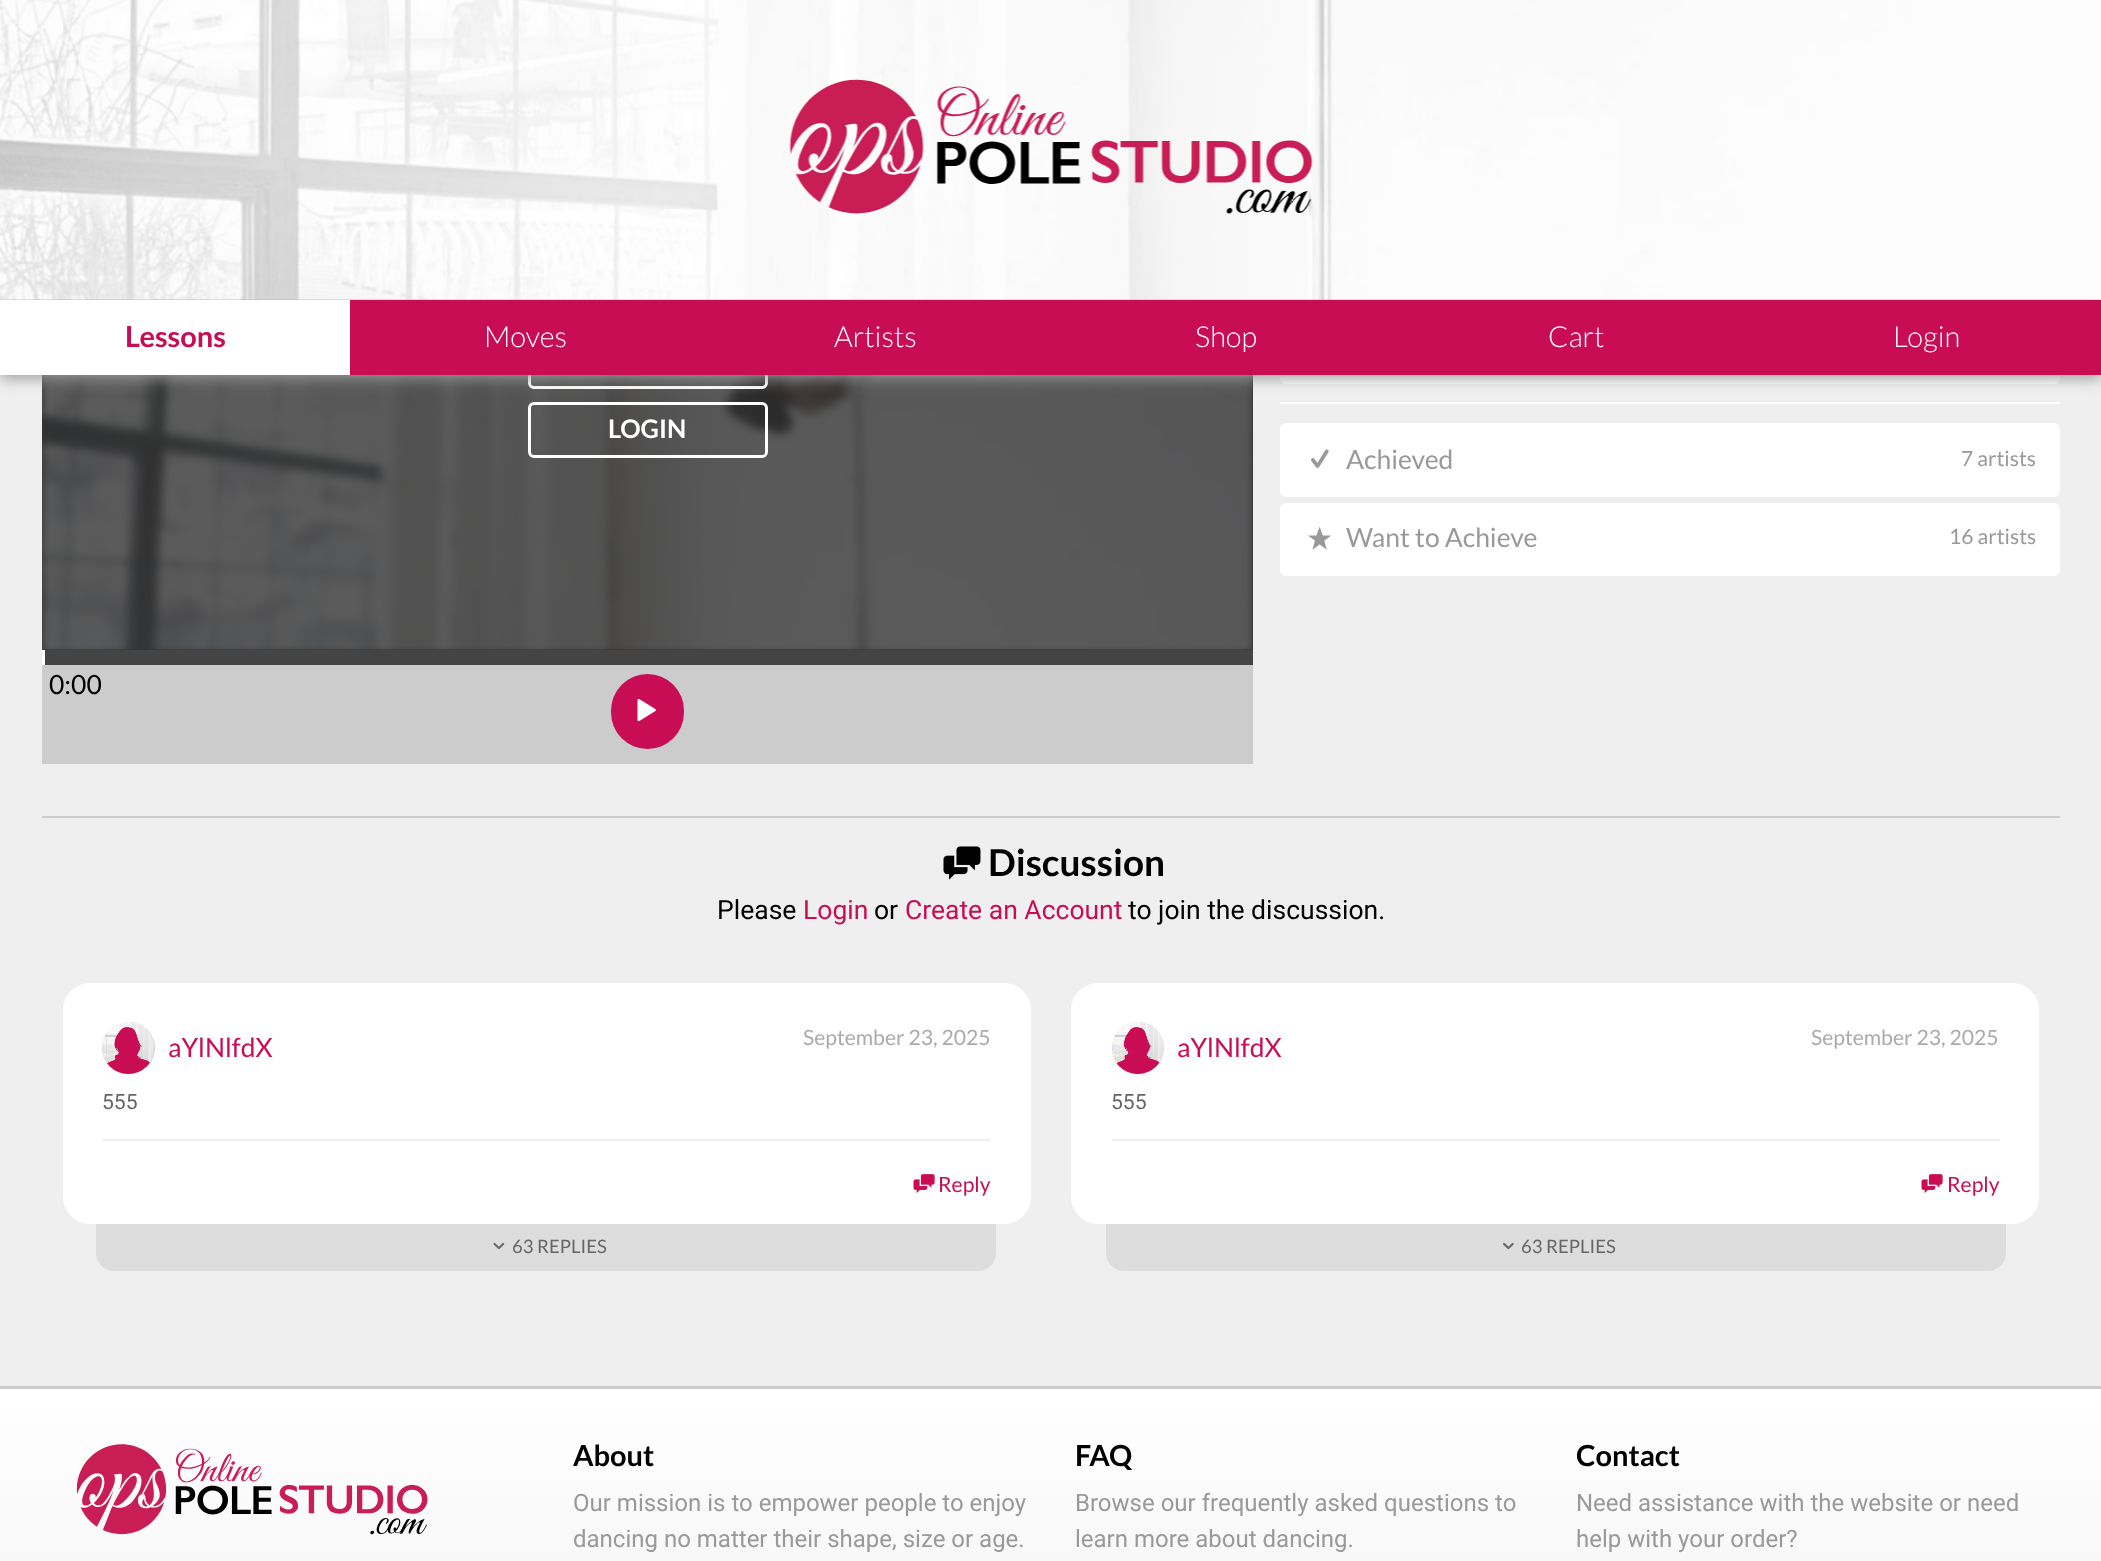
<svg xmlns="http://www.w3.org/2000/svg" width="2101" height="1561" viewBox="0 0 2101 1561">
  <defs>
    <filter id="blur1" x="-50%" y="-200%" width="200%" height="500%"><feGaussianBlur stdDeviation="7.5"/></filter>
    <linearGradient id="g1" gradientUnits="userSpaceOnUse" x1="1051" y1="1389" x2="1051" y2="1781"><stop offset="0" stop-color="#ffffff"/><stop offset="1" stop-color="#efefef"/></linearGradient>
  </defs>
  <rect width="100%" height="100%" fill="#efefef"/>
  <rect x="42" y="299" width="1211" height="351" fill="#333333"/>
  <image x="42" y="299" width="1211" height="351" href="img3.png"/>
  <rect x="529.5" y="333.5" width="237" height="54" rx="4.5" fill="none" stroke="#ffffff" stroke-width="3"/>
  <rect x="1281.5" y="312.5" width="777" height="70" rx="4.5" fill="#ffffff" stroke="#ffffff" stroke-width="3"/>
  <rect x="0" y="3" width="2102" height="375" fill="#999999" filter="url(#blur1)"/>
  <image x="0" y="0" width="2101" height="300" href="img1.png"/>
  <image x="789" y="79" width="524" height="135" href="img2.png"/>
  <rect x="350" y="300" width="1751" height="75" fill="#c80d55"/>
  <rect x="0" y="300" width="350" height="75" fill="#ffffff"/>
  <text x="125" y="347" font-family="Lato" font-size="29" font-weight="bold" fill="#c80d55">Lessons</text>
  <text x="484" y="347" font-family="Lato" font-size="29" font-weight="300" fill="#ffffff">Moves</text>
  <text x="834" y="347" font-family="Lato" font-size="29" font-weight="300" fill="#ffffff">Artists</text>
  <text x="1195" y="347" font-family="Lato" font-size="29" font-weight="300" fill="#ffffff">Shop</text>
  <text x="1548" y="347" font-family="Lato" font-size="29" font-weight="300" fill="#ffffff">Cart</text>
  <text x="1893" y="347" font-family="Lato" font-size="29" font-weight="300" fill="#ffffff">Login</text>
  <rect x="529.5" y="403.5" width="237" height="53" rx="4.5" fill="none" stroke="#ffffff" stroke-width="3"/>
  <text x="608" y="438" font-family="Lato" font-size="25.5" font-weight="bold" fill="#ffffff">LOGIN</text>
  <rect x="42" y="665" width="1211" height="99" fill="#cccccc"/>
  <rect x="45" y="650" width="1208" height="15" fill="#444444"/>
  <rect x="42" y="650" width="3" height="15" fill="#ffffff"/>
  <text x="49" y="694" font-family="Lato" font-size="26.5" fill="#000000">0:00</text>
  <rect x="611" y="674" width="73" height="75" rx="36.5" fill="#c80d55"/>
  <image x="637" y="698" width="19" height="24" href="img4.png"/>
  <rect x="1280" y="402" width="780" height="2" fill="#ffffff"/>
  <rect x="1281.5" y="424.5" width="777" height="71" rx="4.5" fill="#ffffff" stroke="#ffffff" stroke-width="3"/>
  <image x="1311" y="449" width="18" height="19" href="img5.png"/>
  <text x="1346" y="469" font-family="Lato" font-size="26.5" fill="#999999">Achieved</text>
  <text x="1961" y="466" font-family="Lato" font-size="21.1" fill="#999999">7 artists</text>
  <rect x="1281.5" y="504.5" width="777" height="70" rx="4.5" fill="#ffffff" stroke="#ffffff" stroke-width="3"/>
  <image x="1308" y="526" width="23" height="24" href="img6.png"/>
  <text x="1346" y="547" font-family="Lato" font-size="26.5" fill="#999999">Want to Achieve</text>
  <text x="1949" y="544" font-family="Lato" font-size="21.1" fill="#999999">16 artists</text>
  <rect x="42" y="816" width="2018" height="2" fill="#cccccc"/>
  <image x="943" y="846" width="38" height="34" href="img7.png"/>
  <text x="988" y="876" font-family="Lato" font-size="37" font-weight="bold" fill="#000000">Discussion</text>
  <text x="717" y="919" font-family="Roboto" font-size="26.5" fill="#000000">Please</text>
  <text x="803" y="919" font-family="Roboto" font-size="26.5" fill="#c80d55">Login</text>
  <text x="874" y="919" font-family="Roboto" font-size="26.5" fill="#000000">or</text>
  <text x="905" y="919" font-family="Roboto" font-size="26.5" fill="#c80d55">Create an Account</text>
  <text x="1128" y="919" font-family="Roboto" font-size="26.5" fill="#000000">to join the discussion.</text>
  <rect x="64.5" y="984.5" width="965" height="238" rx="25.5" fill="#ffffff" stroke="#ffffff" stroke-width="3"/>
  <rect x="102" y="1022" width="53" height="52" rx="26" fill="#cccccc"/>
  <image x="102" y="1021" width="53" height="53" href="img8.png"/>
  <text x="168" y="1057" font-family="Lato" font-size="26.5" fill="#c80d55">aYlNlfdX</text>
  <text x="803" y="1045" font-family="Lato" font-size="21.1" fill="#aaaaaa">September 23, 2025</text>
  <text x="102" y="1109" font-family="Roboto" font-size="21.1" fill="#666666">555</text>
  <rect x="102" y="1139" width="888" height="2" fill="#efefef"/>
  <image x="913" y="1174" width="22" height="19" href="img9.png"/>
  <text x="938" y="1192" font-family="Lato" font-size="21.1" fill="#c80d55">Reply</text>
  <path d="M96 1224H996V1253C996 1263 988 1271 978 1271H114C104 1271 96 1263 96 1253Z" fill="#dddddd"/>
  <image x="493" y="1242" width="12" height="8" href="img10.png"/>
  <text x="512" y="1253" font-family="Lato" font-size="18.5" fill="#666666">63 REPLIES</text>
  <rect x="1072.5" y="984.5" width="965" height="238" rx="25.5" fill="#ffffff" stroke="#ffffff" stroke-width="3"/>
  <circle cx="1138" cy="1048" r="26" fill="#cccccc"/>
  <image x="1111" y="1021" width="53" height="53" href="img11.png"/>
  <text x="1177" y="1057" font-family="Lato" font-size="26.5" fill="#c80d55">aYlNlfdX</text>
  <text x="1811" y="1045" font-family="Lato" font-size="21.1" fill="#aaaaaa">September 23, 2025</text>
  <text x="1111" y="1109" font-family="Roboto" font-size="21.1" fill="#666666">555</text>
  <rect x="1112" y="1139" width="888" height="2" fill="#efefef"/>
  <image x="1921" y="1174" width="22" height="19" href="img9.png"/>
  <text x="1947" y="1192" font-family="Lato" font-size="21.1" fill="#c80d55">Reply</text>
  <path d="M1106 1224H2006V1253C2006 1263 1998 1271 1988 1271H1124C1114 1271 1106 1263 1106 1253Z" fill="#dddddd"/>
  <image x="1503" y="1242" width="11" height="8" href="img12.png"/>
  <text x="1521" y="1253" font-family="Lato" font-size="18.5" fill="#666666">63 REPLIES</text>
  <rect x="0" y="1389" width="2101" height="172" fill="url(#g1)"/>
  <rect x="0" y="1386" width="2101" height="3" fill="#cccccc"/>
  <image x="76" y="1444" width="352" height="91" href="img13.png"/>
  <text x="573" y="1466" font-family="Lato" font-size="29" font-weight="bold" fill="#000000">About</text>
  <text x="573" y="1511" font-family="Roboto" font-size="24" fill="#999999">Our mission is to empower people to enjoy</text>
  <text x="573" y="1547" font-family="Roboto" font-size="24" fill="#999999">dancing no matter their shape, size or age.</text>
  <text x="1075" y="1466" font-family="Lato" font-size="29" font-weight="bold" fill="#000000">FAQ</text>
  <text x="1075" y="1511" font-family="Roboto" font-size="24" fill="#999999">Browse our frequently asked questions to</text>
  <text x="1075" y="1547" font-family="Roboto" font-size="24" fill="#999999">learn more about dancing.</text>
  <text x="1576" y="1466" font-family="Lato" font-size="29" font-weight="bold" fill="#000000">Contact</text>
  <text x="1576" y="1511" font-family="Roboto" font-size="24" fill="#999999">Need assistance with the website or need</text>
  <text x="1576" y="1547" font-family="Roboto" font-size="24" fill="#999999">help with your order?</text>
</svg>
